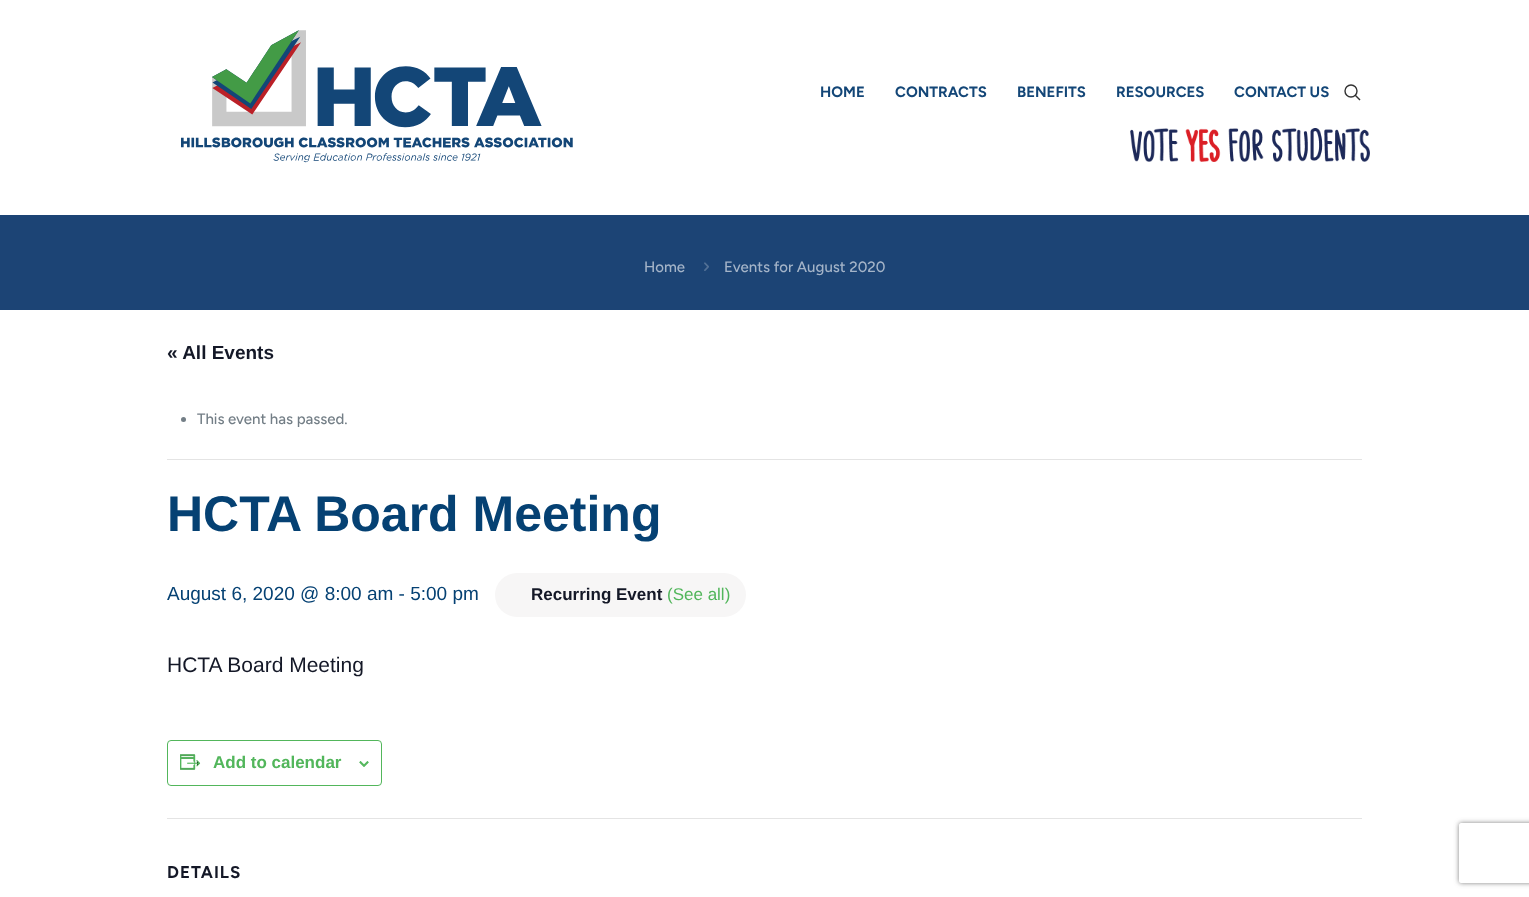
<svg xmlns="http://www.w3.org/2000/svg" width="1529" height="897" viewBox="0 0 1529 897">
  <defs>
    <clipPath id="clip1"><path d="M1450 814H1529V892H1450ZM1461 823H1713C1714 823 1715 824 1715 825V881C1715 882 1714 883 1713 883H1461C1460 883 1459 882 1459 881V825C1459 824 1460 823 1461 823Z" clip-rule="evenodd"/></clipPath>
    <filter id="blur1" x="-50%" y="-200%" width="200%" height="500%"><feGaussianBlur stdDeviation="2.5"/></filter>
  </defs>
  <rect width="100%" height="100%" fill="#ffffff"/>
  <image x="181" y="30" width="392" height="133" href="img1.png"/>
  <text x="820" y="97" font-family="Figtree" font-size="15" font-weight="bold" fill="#134677">HOME</text>
  <text x="895" y="97" font-family="Figtree" font-size="15" font-weight="bold" fill="#134677">CONTRACTS</text>
  <text x="1017" y="97" font-family="Figtree" font-size="15" font-weight="bold" fill="#134677">BENEFITS</text>
  <text x="1116" y="97" font-family="Figtree" font-size="15" font-weight="bold" fill="#134677">RESOURCES</text>
  <text x="1234" y="97" font-family="Figtree" font-size="15" font-weight="bold" fill="#134677">CONTACT US</text>
  <circle cx="1351" cy="91" r="6" fill="none" stroke="#333333" stroke-width="1.4"/>
  <path d="M1355 95L1360 100" fill="none" stroke="#333333" stroke-width="1.4"/>
  <image x="1130" y="128" width="240" height="34" href="img2.png"/>
  <rect x="0" y="215" width="1529" height="95" fill="#1c4475"/>
  <text x="644" y="272" font-family="Figtree" font-size="15" font-weight="500" fill="#a4b4c8">Home</text>
  <image x="704" y="262" width="5" height="9" href="img3.png"/>
  <text x="724" y="272" font-family="Figtree" font-size="15" font-weight="500" fill="#a4b4c8">Events for August 2020</text>
  <text x="167" y="359" font-family="Liberation Sans" font-size="19" font-weight="bold" fill="#141827">« All Events</text>
  <rect x="167" y="459" width="1195" height="1" fill="#e4e4e4"/>
  <circle cx="183.5" cy="419.5" r="2.5" fill="#737e86"/>
  <text x="197" y="424" font-family="Figtree" font-size="15" font-weight="500" fill="#737e86">This event has passed.</text>
  <text x="167" y="531" font-family="Liberation Sans" font-size="50" font-weight="bold" fill="#054173">HCTA Board Meeting</text>
  <text x="167" y="600" font-family="Liberation Sans" font-size="19" fill="#054173">August 6, 2020 @ 8:00 am - 5:00 pm</text>
  <rect x="495" y="573" width="251" height="44" rx="22" fill="#f7f6f6"/>
  <text x="531" y="600" font-family="Liberation Sans" font-size="17" font-weight="bold" fill="#141827">Recurring Event</text>
  <text x="667" y="600" font-family="Liberation Sans" font-size="17" fill="#52b65b">(See all)</text>
  <text x="167" y="672" font-family="Liberation Sans" font-size="21" fill="#141827">HCTA Board Meeting</text>
  <rect x="167.5" y="740.5" width="214" height="45" rx="3.5" fill="none" stroke="#52b65b"/>
  <image x="180" y="754" width="21" height="16" href="img4.png"/>
  <text x="213" y="768" font-family="Liberation Sans" font-size="17" font-weight="bold" fill="#52b65b">Add to calendar</text>
  <image x="359" y="761" width="10" height="6" href="img5.png"/>
  <rect x="167" y="818" width="1195" height="1" fill="#e4e4e4"/>
  <text x="167" y="878" font-family="Figtree" font-size="17" font-weight="bold" letter-spacing="1" fill="#141827">DETAILS</text>
  <g clip-path="url(#clip1)">
    <rect x="1459" y="823" width="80" height="60" rx="2" fill="#808080" filter="url(#blur1)"/>
  </g>
</svg>
